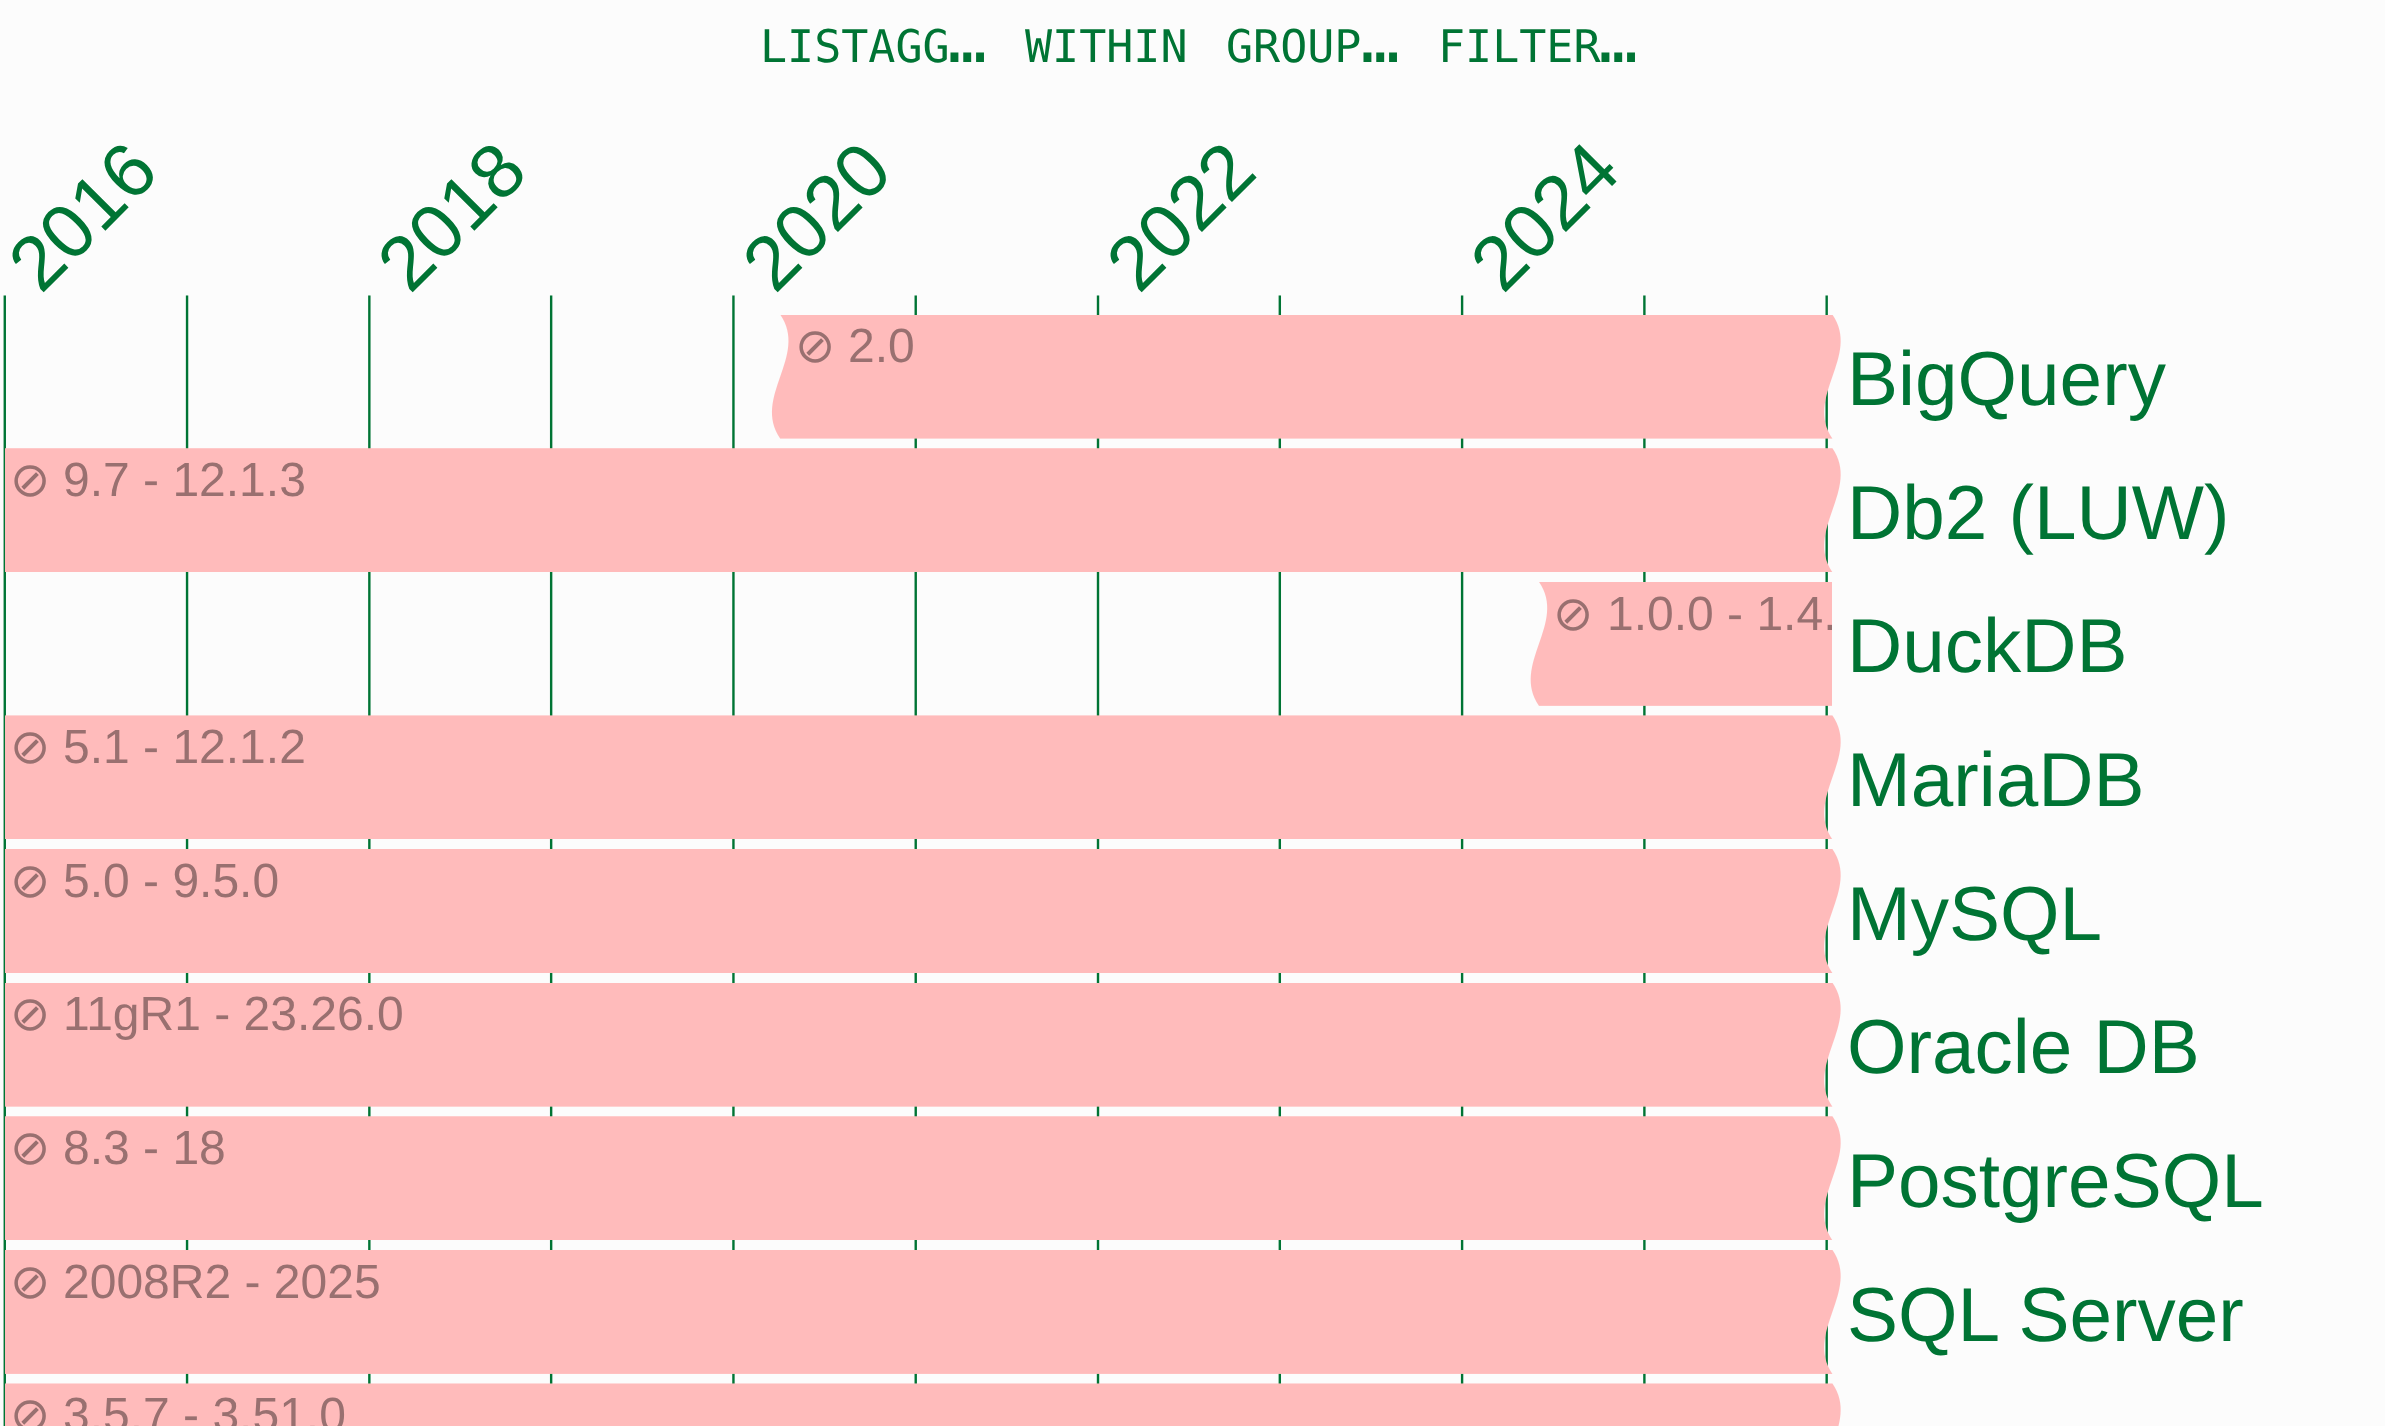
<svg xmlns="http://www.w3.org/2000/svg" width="2385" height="1426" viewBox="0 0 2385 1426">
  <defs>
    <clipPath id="clip1"><rect x="1529" y="582" width="303" height="124"/></clipPath>
  </defs>
  <rect width="100%" height="100%" fill="#fcfcfc"/>
  <text x="760" y="62" font-family="DejaVu Sans Mono" font-size="45" fill="#007434">LISTAGG</text>
  <text x="948" y="62" font-family="DejaVu Sans Mono" font-size="64" fill="#007434">…</text>
  <text x="1025" y="62" font-family="DejaVu Sans Mono" font-size="45" fill="#007434">WITHIN</text>
  <text x="1226" y="62" font-family="DejaVu Sans Mono" font-size="45" fill="#007434">GROUP</text>
  <text x="1361" y="62" font-family="DejaVu Sans Mono" font-size="64" fill="#007434">…</text>
  <text x="1438" y="62" font-family="DejaVu Sans Mono" font-size="45" fill="#007434">FILTER</text>
  <text x="1599" y="62" font-family="DejaVu Sans Mono" font-size="64" fill="#007434">…</text>
  <text x="41" y="295" transform="rotate(-45 41 295)" font-family="Liberation Sans" font-size="76.5" fill="#007434">2016</text>
  <text x="410" y="295" transform="rotate(-45 410 295)" font-family="Liberation Sans" font-size="76.5" fill="#007434">2018</text>
  <text x="775" y="295" transform="rotate(-45 775 295)" font-family="Liberation Sans" font-size="76.5" fill="#007434">2020</text>
  <text x="1139" y="295" transform="rotate(-45 1139 295)" font-family="Liberation Sans" font-size="76.5" fill="#007434">2022</text>
  <text x="1503" y="295" transform="rotate(-45 1503 295)" font-family="Liberation Sans" font-size="76.5" fill="#007434">2024</text>
  <image x="3" y="295" width="1838" height="1131" href="img1.png"/>
  <text x="795" y="362" font-family="DejaVu Sans" font-size="48" fill="#997070">⊘</text>
  <text x="848" y="362" font-family="Liberation Sans" font-size="48" fill="#997070">2.0</text>
  <text x="1847" y="405" font-family="Liberation Sans" font-size="76.5" fill="#007434">BigQuery</text>
  <text x="10" y="496" font-family="DejaVu Sans" font-size="48" fill="#997070">⊘</text>
  <text x="63" y="496" font-family="Liberation Sans" font-size="48" fill="#997070">9.7 - 12.1.3</text>
  <text x="1847" y="539" font-family="Liberation Sans" font-size="76.5" fill="#007434">Db2 (LUW)</text>
  <text x="1553" y="630" font-family="DejaVu Sans" font-size="48" fill="#997070">⊘</text>
  <g clip-path="url(#clip1)">
    <text x="1607" y="630" font-family="Liberation Sans" font-size="48" fill="#997070">1.0.0 - 1.4.</text>
  </g>
  <text x="1847" y="672" font-family="Liberation Sans" font-size="76.5" fill="#007434">DuckDB</text>
  <text x="10" y="763" font-family="DejaVu Sans" font-size="48" fill="#997070">⊘</text>
  <text x="63" y="763" font-family="Liberation Sans" font-size="48" fill="#997070">5.1 - 12.1.2</text>
  <text x="1847" y="806" font-family="Liberation Sans" font-size="76.5" fill="#007434">MariaDB</text>
  <text x="10" y="897" font-family="DejaVu Sans" font-size="48" fill="#997070">⊘</text>
  <text x="63" y="897" font-family="Liberation Sans" font-size="48" fill="#997070">5.0 - 9.5.0</text>
  <text x="1847" y="940" font-family="Liberation Sans" font-size="76.5" fill="#007434">MySQL</text>
  <text x="10" y="1030" font-family="DejaVu Sans" font-size="48" fill="#997070">⊘</text>
  <text x="63" y="1030" font-family="Liberation Sans" font-size="48" fill="#997070">11gR1 - 23.26.0</text>
  <text x="1847" y="1073" font-family="Liberation Sans" font-size="76.5" fill="#007434">Oracle DB</text>
  <text x="10" y="1164" font-family="DejaVu Sans" font-size="48" fill="#997070">⊘</text>
  <text x="63" y="1164" font-family="Liberation Sans" font-size="48" fill="#997070">8.3 - 18</text>
  <text x="1847" y="1207" font-family="Liberation Sans" font-size="76.5" fill="#007434">PostgreSQL</text>
  <text x="10" y="1298" font-family="DejaVu Sans" font-size="48" fill="#997070">⊘</text>
  <text x="63" y="1298" font-family="Liberation Sans" font-size="48" fill="#997070">2008R2 - 2025</text>
  <text x="1847" y="1341" font-family="Liberation Sans" font-size="76.5" fill="#007434">SQL Server</text>
  <text x="10" y="1431" font-family="DejaVu Sans" font-size="48" fill="#997070">⊘</text>
  <text x="63" y="1431" font-family="Liberation Sans" font-size="48" fill="#997070">3.5.7 - 3.51.0</text>
</svg>
